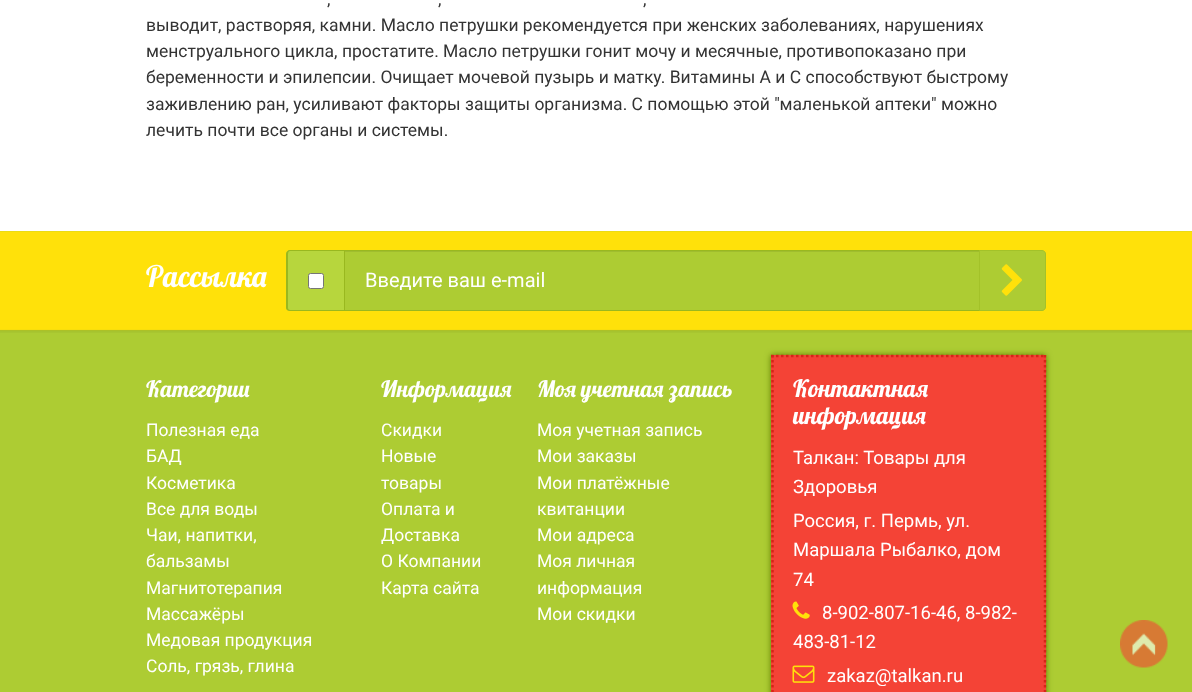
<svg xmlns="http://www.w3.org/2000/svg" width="1192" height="692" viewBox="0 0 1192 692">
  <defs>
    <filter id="blur1" x="-50%" y="-200%" width="200%" height="500%"><feGaussianBlur stdDeviation="3"/></filter>
  </defs>
  <rect width="100%" height="100%" fill="#ffffff"/>
  <text x="327" y="5" font-family="Roboto" font-size="17.5" fill="#333333">,</text>
  <text x="438" y="5" font-family="Roboto" font-size="17.5" fill="#333333">,</text>
  <text x="643" y="5" font-family="Roboto" font-size="17.5" fill="#333333">,</text>
  <text x="146" y="31" font-family="Roboto" font-size="17.5" fill="#333333">выводит, растворяя, камни. Масло петрушки рекомендуется при женских заболеваниях, нарушениях</text>
  <text x="146" y="57" font-family="Roboto" font-size="17.5" fill="#333333">менструального цикла, простатите. Масло петрушки гонит мочу и месячные, противопоказано при</text>
  <text x="146" y="83" font-family="Roboto" font-size="17.5" fill="#333333">беременности и эпилепсии. Очищает мочевой пузырь и матку. Витамины А и С способствуют быстрому</text>
  <text x="146" y="110" font-family="Roboto" font-size="17.5" fill="#333333">заживлению ран, усиливают факторы защиты организма. С помощью этой "маленькой аптеки" можно</text>
  <text x="146" y="136" font-family="Roboto" font-size="17.5" fill="#333333">лечить почти все органы и системы.</text>
  <rect x="0" y="231" width="1192" height="461" fill="#adcc33"/>
  <image x="0" y="231" width="1192" height="102" href="img1.png"/>
  <text x="146" y="287" font-family="Lobster" font-size="29.75" fill="#ffffff">Рассылка</text>
  <path d="M290 250H344V311H290C288 311 286 309 286 307V254C286 252 288 250 290 250Z" fill="#b7d63d"/>
  <path d="M290 250H344V311H290C288 311 286 310 286 308V254C286 252 288 250 290 250ZM290 251H344V310H290C289 310 288 309 288 308V254C288 252 289 251 290 251Z" fill="#99b81f" fill-rule="evenodd"/>
  <rect x="308.5" y="273.5" width="15" height="15" rx="2" fill="#ffffff" stroke="#767676"/>
  <rect x="345" y="252" width="634" height="58" fill="#adcc33"/>
  <rect x="345" y="251" width="634" height="1" fill="#a0bd2f"/>
  <rect x="344.5" y="250.5" width="635" height="60" fill="none" stroke="#99b81f"/>
  <text x="365" y="287" font-family="Roboto" font-size="20" fill="#ffffff">Введите ваш e-mail</text>
  <path d="M979.5 250.5H1042C1044 250.5 1045.5 252 1045.5 254V307C1045.5 309 1044 310.5 1042 310.5H979.5Z" fill="#adcc33" stroke="#a3c229"/>
  <image x="1001" y="264" width="21" height="32" href="img2.png"/>
  <text x="146" y="397" font-family="Lobster" font-size="22.75" fill="#ffffff">Категории</text>
  <text x="146" y="436" font-family="Roboto" font-size="17.5" fill="#ffffff">Полезная еда</text>
  <text x="146" y="462" font-family="Roboto" font-size="17.5" fill="#ffffff">БАД</text>
  <text x="146" y="489" font-family="Roboto" font-size="17.5" fill="#ffffff">Косметика</text>
  <text x="146" y="515" font-family="Roboto" font-size="17.5" fill="#ffffff">Все для воды</text>
  <text x="146" y="541" font-family="Roboto" font-size="17.5" fill="#ffffff">Чаи, напитки,</text>
  <text x="146" y="567" font-family="Roboto" font-size="17.5" fill="#ffffff">бальзамы</text>
  <text x="146" y="594" font-family="Roboto" font-size="17.5" fill="#ffffff">Магнитотерапия</text>
  <text x="146" y="620" font-family="Roboto" font-size="17.5" fill="#ffffff">Массажёры</text>
  <text x="146" y="646" font-family="Roboto" font-size="17.5" fill="#ffffff">Медовая продукция</text>
  <text x="146" y="672" font-family="Roboto" font-size="17.5" fill="#ffffff">Соль, грязь, глина</text>
  <text x="381" y="397" font-family="Lobster" font-size="22.75" fill="#ffffff">Информация</text>
  <text x="381" y="436" font-family="Roboto" font-size="17.5" fill="#ffffff">Скидки</text>
  <text x="381" y="462" font-family="Roboto" font-size="17.5" fill="#ffffff">Новые</text>
  <text x="381" y="489" font-family="Roboto" font-size="17.5" fill="#ffffff">товары</text>
  <text x="381" y="515" font-family="Roboto" font-size="17.5" fill="#ffffff">Оплата и</text>
  <text x="381" y="541" font-family="Roboto" font-size="17.5" fill="#ffffff">Доставка</text>
  <text x="381" y="567" font-family="Roboto" font-size="17.5" fill="#ffffff">О Компании</text>
  <text x="381" y="594" font-family="Roboto" font-size="17.5" fill="#ffffff">Карта сайта</text>
  <text x="537" y="397" font-family="Lobster" font-size="22.75" fill="#ffffff">Моя учетная запись</text>
  <text x="537" y="436" font-family="Roboto" font-size="17.5" fill="#ffffff">Моя учетная запись</text>
  <text x="537" y="462" font-family="Roboto" font-size="17.5" fill="#ffffff">Мои заказы</text>
  <text x="537" y="489" font-family="Roboto" font-size="17.5" fill="#ffffff">Мои платёжные</text>
  <text x="537" y="515" font-family="Roboto" font-size="17.5" fill="#ffffff">квитанции</text>
  <text x="537" y="541" font-family="Roboto" font-size="17.5" fill="#ffffff">Мои адреса</text>
  <text x="537" y="567" font-family="Roboto" font-size="17.5" fill="#ffffff">Моя личная</text>
  <text x="537" y="594" font-family="Roboto" font-size="17.5" fill="#ffffff">информация</text>
  <text x="537" y="620" font-family="Roboto" font-size="17.5" fill="#ffffff">Мои скидки</text>
  <rect x="771" y="355" width="275" height="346" fill="#5d7c00" filter="url(#blur1)"/>
  <rect x="771" y="355" width="275" height="337" fill="#f44336"/>
  <path d="M771 356H1046" fill="none" stroke="#d62518" stroke-width="2.5" stroke-dasharray="2.5 2.5"/>
  <path d="M1045 355V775" fill="none" stroke="#d62518" stroke-width="2.5" stroke-dasharray="2.5 2.5"/>
  <path d="M772.5 355V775" fill="none" stroke="#d62518" stroke-width="2.5" stroke-dasharray="2.5 2.5"/>
  <text x="793" y="397" font-family="Lobster" font-size="24" fill="#ffffff">Контактная</text>
  <text x="793" y="424" font-family="Lobster" font-size="24" fill="#ffffff">информация</text>
  <text x="793" y="464" font-family="Roboto" font-size="18.5" fill="#ffffff">Талкан: Товары для</text>
  <text x="793" y="493" font-family="Roboto" font-size="18.5" fill="#ffffff">Здоровья</text>
  <text x="793" y="527" font-family="Roboto" font-size="18.5" fill="#ffffff">Россия, г. Пермь, ул.</text>
  <text x="793" y="556" font-family="Roboto" font-size="18.5" fill="#ffffff">Маршала Рыбалко, дом</text>
  <text x="793" y="586" font-family="Roboto" font-size="18.5" fill="#ffffff">74</text>
  <image x="792" y="601" width="18" height="18" href="img3.png"/>
  <text x="822" y="619" font-family="Roboto" font-size="18.5" fill="#ffffff">8-902-807-16-46, 8-982-</text>
  <text x="793" y="648" font-family="Roboto" font-size="18.5" fill="#ffffff">483-81-12</text>
  <image x="792" y="665" width="23" height="18" href="img4.png"/>
  <text x="827" y="682" font-family="Roboto" font-size="18.5" fill="#ffffff">zakaz@talkan.ru</text>
  <image x="1120" y="620" width="48" height="48" href="img5.png"/>
</svg>
